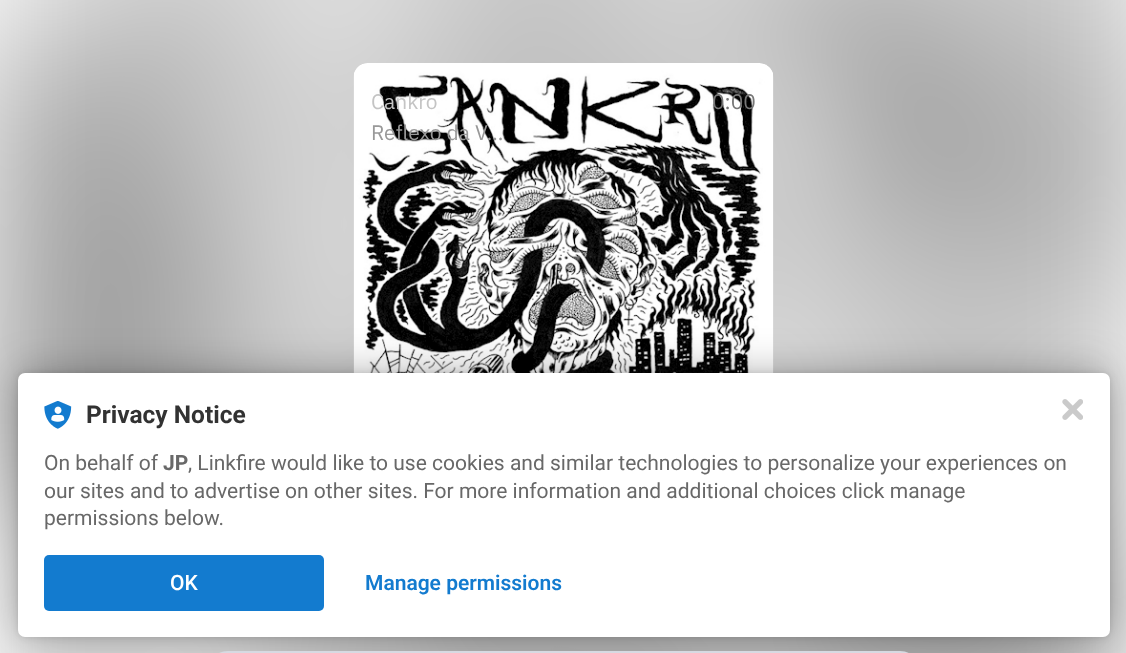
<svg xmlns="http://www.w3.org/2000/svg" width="1126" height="653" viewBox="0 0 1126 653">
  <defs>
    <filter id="blur1" x="-50%" y="-200%" width="200%" height="500%"><feGaussianBlur stdDeviation="3.5"/></filter>
    <filter id="blur2" x="-50%" y="-200%" width="200%" height="500%"><feGaussianBlur stdDeviation="21"/></filter>
  </defs>
  <rect width="100%" height="100%" fill="#ffffff"/>
  <image x="0" y="0" width="1126" height="653" href="img1.png"/>
  <image x="353" y="63" width="421" height="310" href="img2.png"/>
  <text x="371" y="109" font-family="IBM Plex Sans" font-size="21" fill="#c4c4c4">Cankro</text>
  <text x="371" y="140" font-family="IBM Plex Sans" font-size="21" fill="#999999">Reflexo da V…</text>
  <text x="712" y="109" font-family="IBM Plex Sans" font-size="21" fill="#777777">0:00</text>
  <rect x="215" y="652" width="698" height="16" rx="13" fill="none" stroke="#e6eaf2" stroke-width="2"/>
  <rect x="18" y="373" width="1092" height="264" rx="7" fill="#000000" fill-opacity="0.12" filter="url(#blur1)"/>
  <rect x="18" y="373" width="1092" height="264" rx="7" fill="#000000" fill-opacity="0.3" filter="url(#blur2)"/>
  <rect x="18" y="373" width="1092" height="264" rx="7" fill="#ffffff"/>
  <image x="44" y="401" width="28" height="28" href="img3.png"/>
  <text x="86" y="423" font-family="Roboto" font-size="24.5" font-weight="bold" fill="#323232">Privacy Notice</text>
  <text x="44" y="470" font-family="Roboto" font-size="21" fill="#686868">On behalf of</text>
  <text x="163" y="470" font-family="Roboto" font-size="21" font-weight="bold" fill="#686868">JP</text>
  <text x="188" y="470" font-family="Roboto" font-size="21" fill="#686868">, Linkfire would like to use cookies and similar technologies to personalize your experiences on</text>
  <text x="44" y="498" font-family="Roboto" font-size="21" fill="#686868">our sites and to advertise on other sites. For more information and additional choices click manage</text>
  <text x="44" y="525" font-family="Roboto" font-size="21" fill="#686868">permissions below.</text>
  <rect x="44" y="555" width="280" height="56" rx="5" fill="#137bcf"/>
  <text x="170" y="590" font-family="Roboto" font-size="21" font-weight="500" fill="#ffffff">OK</text>
  <text x="365" y="590" font-family="Roboto" font-size="21" font-weight="600" fill="#137bcf">Manage permissions</text>
  <image x="1062" y="399" width="21" height="21" href="img4.png"/>
</svg>
